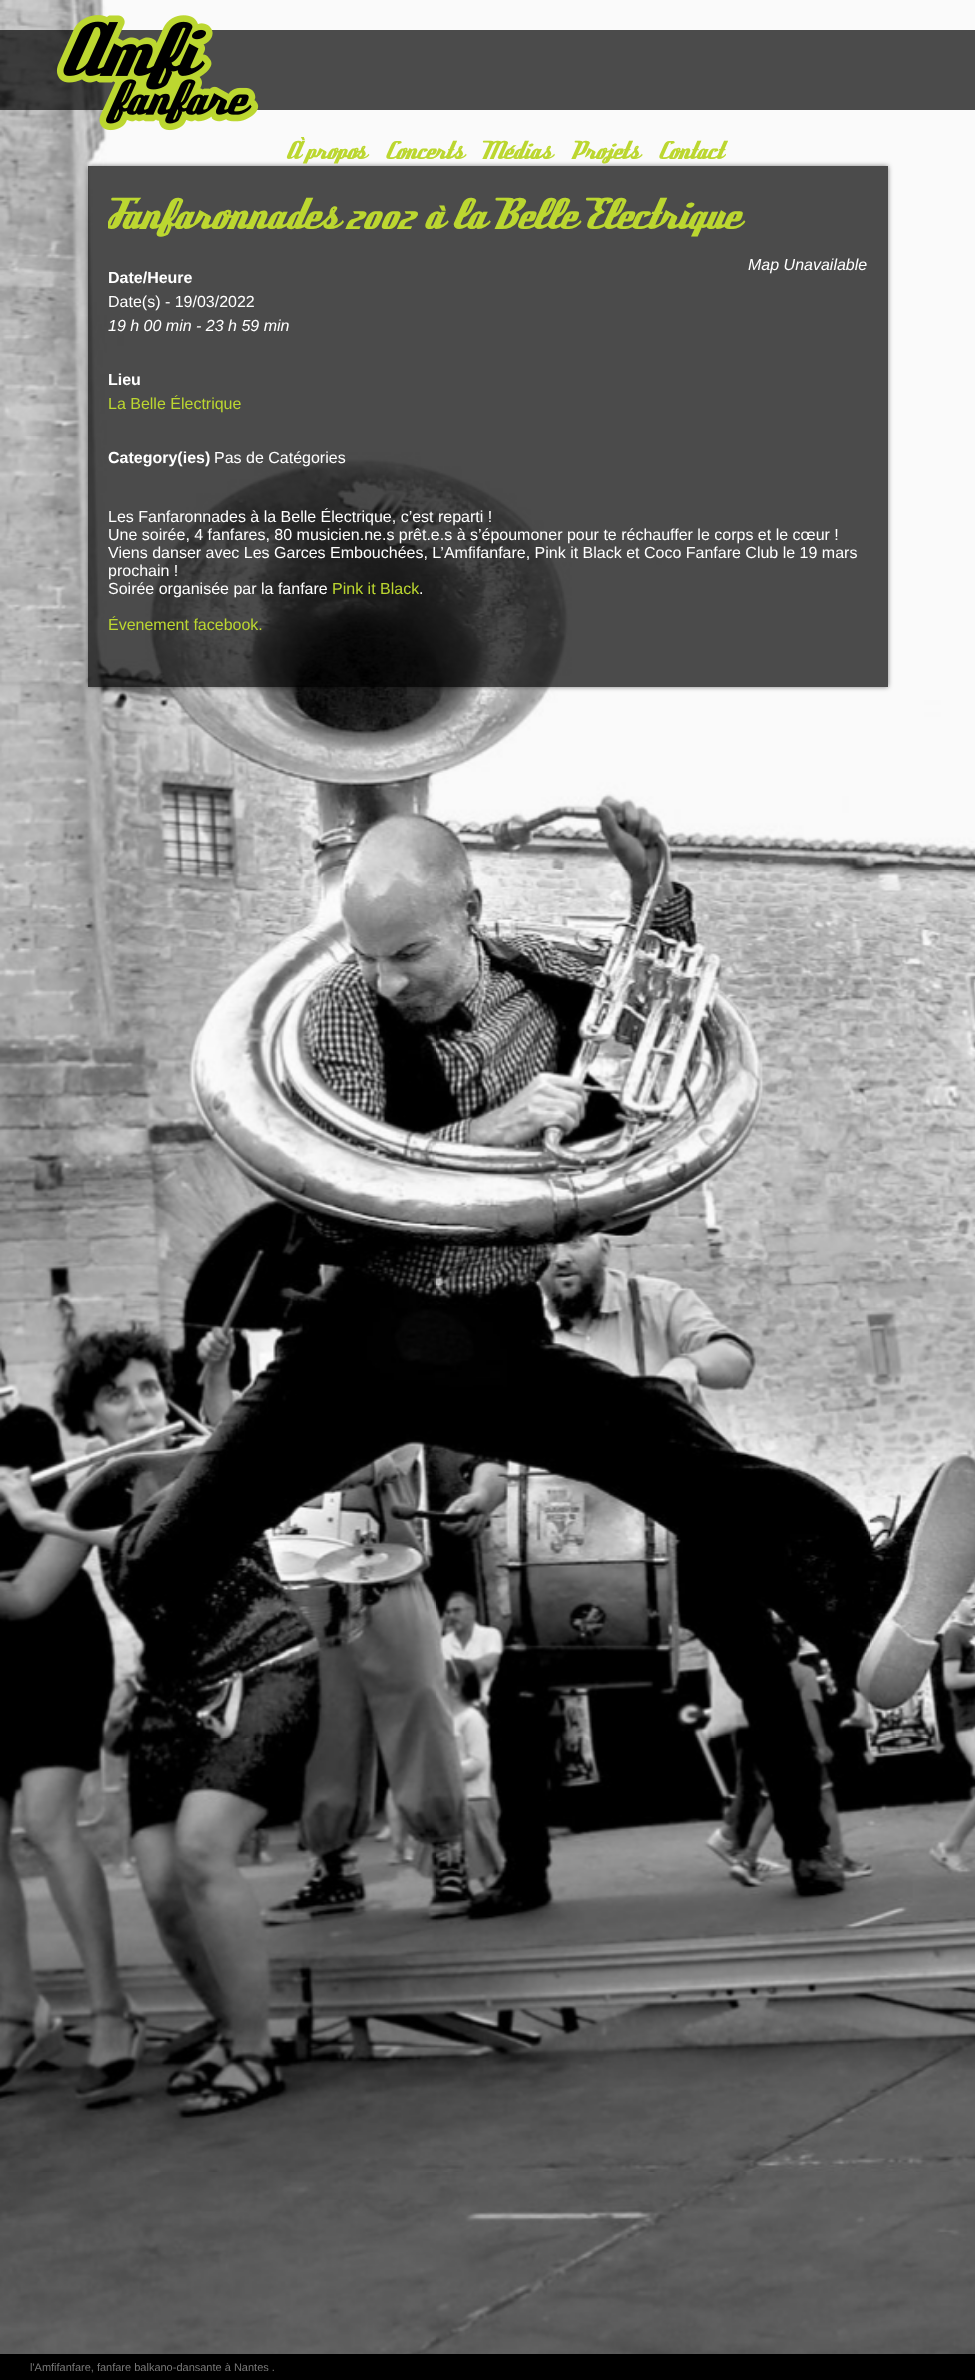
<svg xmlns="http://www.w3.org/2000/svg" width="975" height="2380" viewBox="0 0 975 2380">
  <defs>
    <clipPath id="clip1"><path d="M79 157H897V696H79ZM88 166H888V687H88Z" clip-rule="evenodd"/></clipPath>
    <filter id="blur1" x="-50%" y="-200%" width="200%" height="500%"><feGaussianBlur stdDeviation="2.5"/></filter>
    <clipPath id="clip2"><rect x="108" y="176" width="760" height="491"/></clipPath>
  </defs>
  <rect width="100%" height="100%" fill="#ffffff"/>
  <image x="0" y="0" width="975" height="2354" href="img1.png"/>
  <rect x="0" y="30" width="975" height="80" fill="#000000" fill-opacity="0.7"/>
  <image x="56" y="15" width="203" height="116" href="img2.png"/>
  <g clip-path="url(#clip1)">
    <rect x="88" y="166" width="800" height="521" fill="#000000" fill-opacity="0.5" filter="url(#blur1)"/>
  </g>
  <text x="285" y="159" font-family="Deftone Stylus" font-size="28" fill="#bcd730">À propos</text>
  <text x="384" y="159" font-family="Deftone Stylus" font-size="28" fill="#bcd730">Concerts</text>
  <text x="481" y="159" font-family="Deftone Stylus" font-size="28" fill="#bcd730">Médias</text>
  <text x="570" y="159" font-family="Deftone Stylus" font-size="28" fill="#bcd730">Projets</text>
  <text x="657" y="159" font-family="Deftone Stylus" font-size="28" fill="#bcd730">Contact</text>
  <rect x="88" y="166" width="800" height="521" fill="#000000" fill-opacity="0.7"/>
  <g clip-path="url(#clip2)">
    <text x="108" y="229" font-family="Deftone Stylus" font-size="48" fill="#bcd730">Fanfaronnades 2002 à la Belle Electrique</text>
  </g>
  <text x="748" y="270" font-family="Liberation Sans" font-size="16" font-style="italic" fill="#ffffff">Map Unavailable</text>
  <text x="108" y="283" font-family="Liberation Sans" font-size="16" font-weight="bold" fill="#ffffff">Date/Heure</text>
  <text x="108" y="307" font-family="Liberation Sans" font-size="16" fill="#ffffff">Date(s) - 19/03/2022</text>
  <text x="108" y="331" font-family="Liberation Sans" font-size="16" font-style="italic" fill="#ffffff">19 h 00 min - 23 h 59 min</text>
  <text x="108" y="385" font-family="Liberation Sans" font-size="16" font-weight="bold" fill="#ffffff">Lieu</text>
  <text x="108" y="409" font-family="Liberation Sans" font-size="16" fill="#bcd730">La Belle Électrique</text>
  <text x="108" y="463" font-family="Liberation Sans" font-size="16" font-weight="bold" fill="#ffffff">Category(ies)</text>
  <text x="214" y="463" font-family="Liberation Sans" font-size="16" fill="#ffffff">Pas de Catégories</text>
  <text x="108" y="522" font-family="Liberation Sans" font-size="16" fill="#ffffff">Les Fanfaronnades à la Belle Électrique, c’est reparti !</text>
  <text x="108" y="540" font-family="Liberation Sans" font-size="16" fill="#ffffff">Une soirée, 4 fanfares, 80 musicien.ne.s prêt.e.s à s’époumoner pour te réchauffer le corps et le cœur !</text>
  <text x="108" y="558" font-family="Liberation Sans" font-size="16" fill="#ffffff">Viens danser avec Les Garces Embouchées, L’Amfifanfare, Pink it Black et Coco Fanfare Club le 19 mars</text>
  <text x="108" y="576" font-family="Liberation Sans" font-size="16" fill="#ffffff">prochain !</text>
  <text x="108" y="594" font-family="Liberation Sans" font-size="16" fill="#ffffff">Soirée organisée par la fanfare</text>
  <text x="332" y="594" font-family="Liberation Sans" font-size="16" fill="#bcd730">Pink it Black</text>
  <text x="419" y="594" font-family="Liberation Sans" font-size="16" fill="#ffffff">.</text>
  <text x="108" y="630" font-family="Liberation Sans" font-size="16" fill="#bcd730">Évenement facebook.</text>
  <rect x="0" y="2354" width="975" height="26" fill="#000000"/>
  <text x="30" y="2371" font-family="Liberation Sans" font-size="11" fill="#777777">l'Amfifanfare, fanfare balkano-dansante à Nantes .</text>
</svg>
